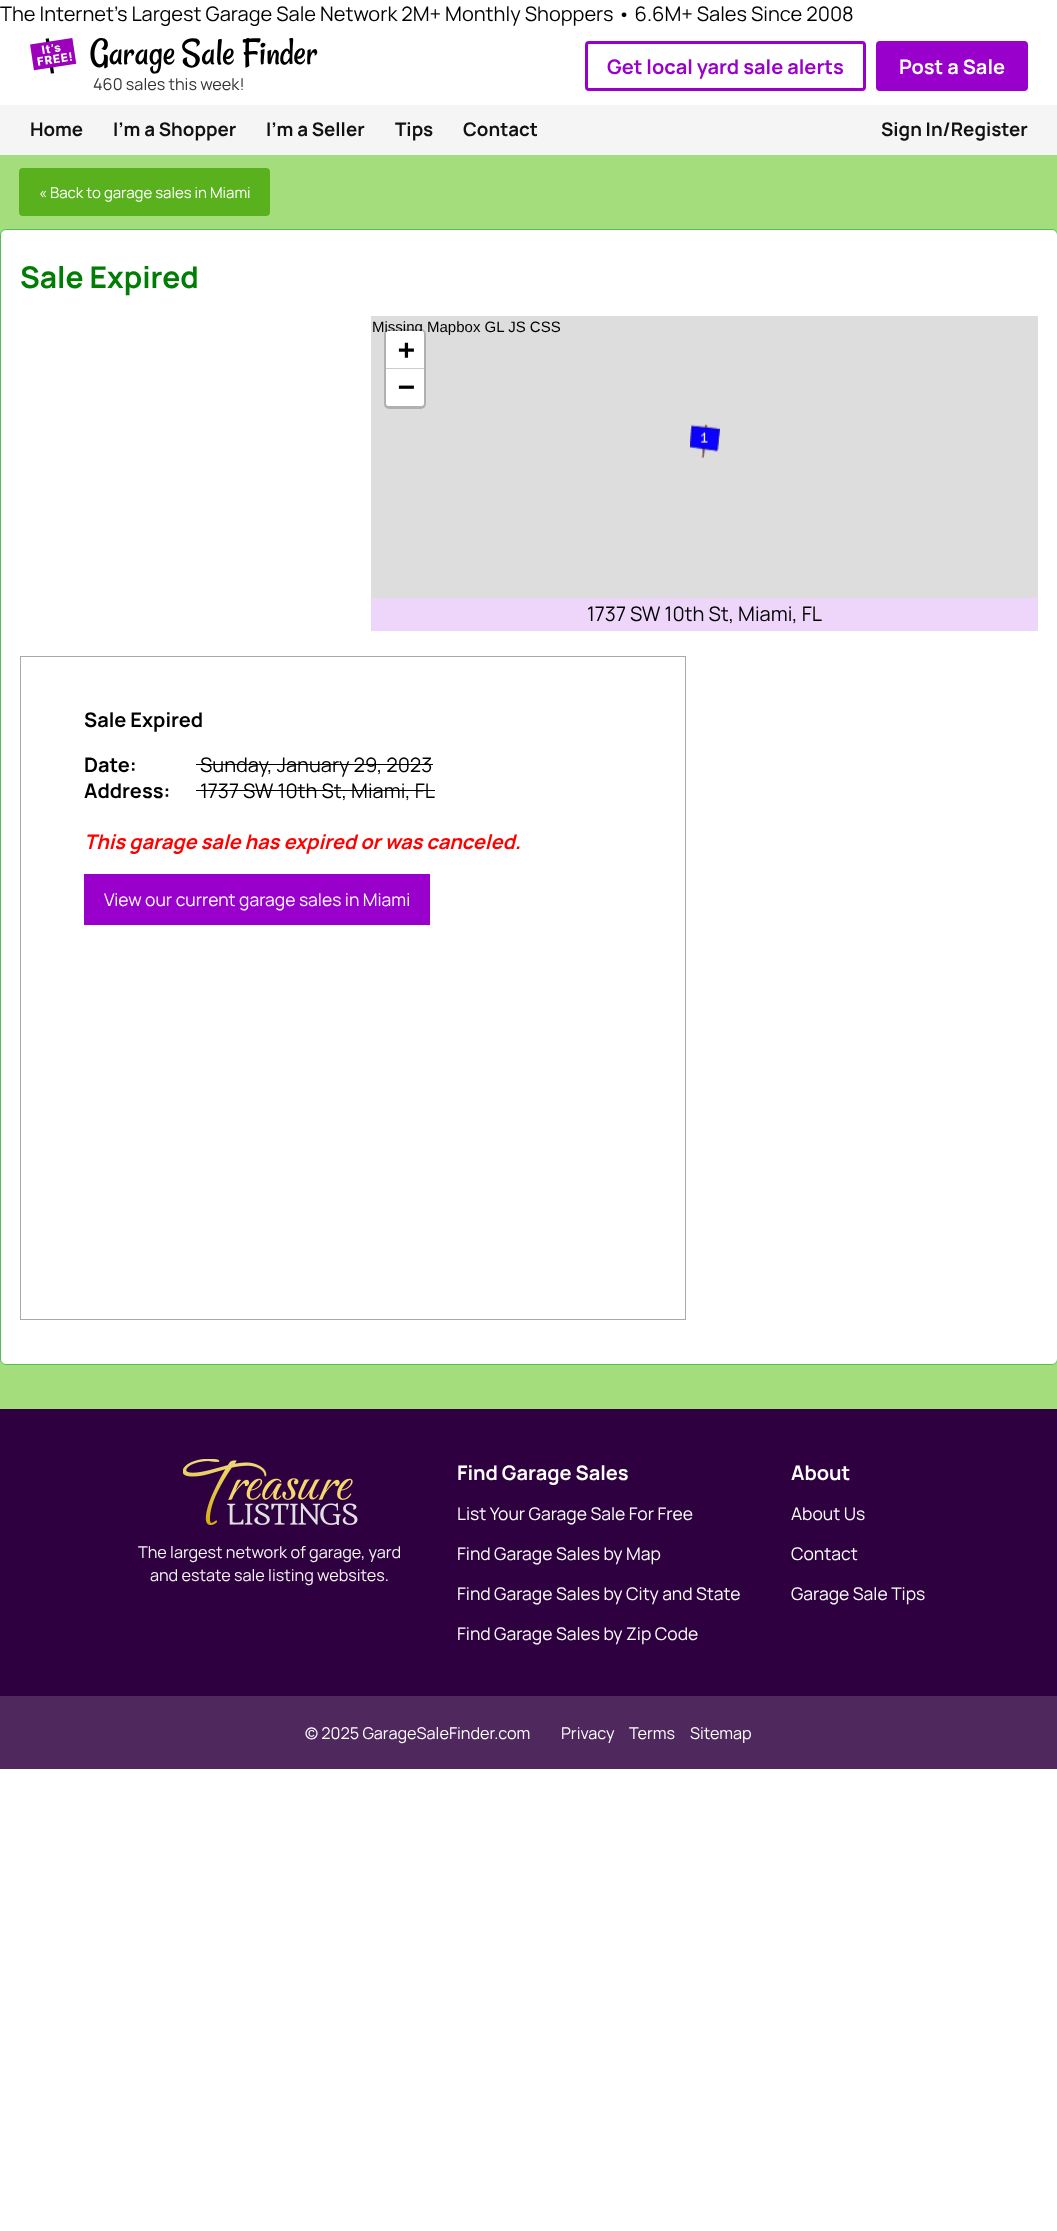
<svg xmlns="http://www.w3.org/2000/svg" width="1057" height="2231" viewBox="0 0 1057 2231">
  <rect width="100%" height="100%" fill="#ffffff"/>
  <text x="0" y="21" font-family="Manrope" font-size="20" fill="#000000">The Internet's Largest Garage Sale Network 2M+ Monthly Shoppers • 6.6M+ Sales Since 2008</text>
  <rect x="586.5" y="42.5" width="278" height="47" rx="2.5" fill="none" stroke="#9900cc" stroke-width="3"/>
  <text x="607" y="74" font-family="Manrope" font-size="20" font-weight="bold" fill="#9900cc">Get local yard sale alerts</text>
  <rect x="877.5" y="42.5" width="149" height="47" rx="2.5" fill="#9900cc" stroke="#9900cc" stroke-width="3"/>
  <text x="899" y="74" font-family="Manrope" font-size="20" font-weight="bold" fill="#ffffff">Post a Sale</text>
  <image x="30" y="38" width="288" height="36" href="img1.png"/>
  <text x="93" y="90" font-family="Manrope" font-size="16.25" fill="#333333">460 sales this week!</text>
  <rect x="0" y="105" width="1057" height="50" fill="#f5f5f5"/>
  <text x="30" y="136" font-family="Manrope" font-size="18.75" font-weight="bold" fill="#111111">Home</text>
  <text x="113" y="136" font-family="Manrope" font-size="18.75" font-weight="bold" fill="#111111">I'm a Shopper</text>
  <text x="266" y="136" font-family="Manrope" font-size="18.75" font-weight="bold" fill="#111111">I'm a Seller</text>
  <text x="395" y="136" font-family="Manrope" font-size="18.75" font-weight="bold" fill="#111111">Tips</text>
  <text x="463" y="136" font-family="Manrope" font-size="18.75" font-weight="bold" fill="#111111">Contact</text>
  <text x="881" y="136" font-family="Manrope" font-size="18.75" font-weight="bold" fill="#111111">Sign In/Register</text>
  <rect x="0" y="155" width="1057" height="1254" fill="#a4de7c"/>
  <rect x="19" y="168" width="251" height="48" rx="4" fill="#5ab11e"/>
  <text x="39" y="198" font-family="Manrope" font-size="15" fill="#ffffff">« Back to garage sales in Miami</text>
  <rect x="0.5" y="229.5" width="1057" height="1135" rx="5.5" fill="#ffffff" stroke="#50c255"/>
  <text x="20" y="288" font-family="Manrope" font-size="30" font-weight="bold" fill="#007e04">Sale Expired</text>
  <rect x="371" y="316" width="667" height="282" fill="#dddddd"/>
  <text x="372" y="332" font-family="Liberation Sans" font-size="15" fill="#000000">Missing Mapbox GL JS CSS</text>
  <image x="690" y="424" width="30" height="34" href="img2.png"/>
  <rect x="385.5" y="330.5" width="39" height="77" rx="3.5" fill="none" stroke="#000000" stroke-opacity="0.2" stroke-width="3"/>
  <path d="M388.5 331H421.5C423 331 424 332 424 333.5V369H386V333.5C386 332 387 331 388.5 331Z" fill="#ffffff"/>
  <rect x="386" y="368" width="38" height="1" fill="#cccccc"/>
  <text x="398" y="359" font-family="DejaVu Sans Mono" font-size="28" font-weight="bold" fill="#000000">+</text>
  <path d="M386 369H424V403.5C424 405 423 406 421.5 406H388.5C387 406 386 405 386 403.5Z" fill="#ffffff"/>
  <text x="398" y="396" font-family="DejaVu Sans Mono" font-size="28" font-weight="bold" fill="#000000">−</text>
  <rect x="371" y="598" width="667" height="33" fill="#eed6fb"/>
  <text x="587" y="621" font-family="Manrope" font-size="20" fill="#000000">1737 SW 10th St, Miami, FL</text>
  <rect x="20.5" y="656.5" width="665" height="663" fill="none" stroke="#aaaaaa"/>
  <text x="84" y="727" font-family="Manrope" font-size="20" font-weight="bold" fill="#000000">Sale Expired</text>
  <text x="84" y="772" font-family="Manrope" font-size="20" font-weight="bold" fill="#000000">Date:</text>
  <text x="200" y="772" font-family="Manrope" font-size="20" fill="#000000">Sunday, January 29, 2023</text>
  <rect x="196" y="764" width="237" height="1" fill="#000000"/>
  <text x="84" y="798" font-family="Manrope" font-size="20" font-weight="bold" fill="#000000">Address:</text>
  <text x="200" y="798" font-family="Manrope" font-size="20" fill="#000000">1737 SW 10th St, Miami, FL</text>
  <rect x="196" y="790" width="239" height="1" fill="#000000"/>
  <text x="84" y="849" font-family="Manrope" font-size="20" font-weight="bold" font-style="italic" fill="#ff0000">This garage sale has expired or was canceled.</text>
  <rect x="84" y="874" width="346" height="51" fill="#9900cc"/>
  <text x="104" y="906" font-family="Manrope" font-size="17.5" fill="#ffffff">View our current garage sales in Miami</text>
  <rect x="0" y="1409" width="1057" height="287" fill="#2e003f"/>
  <image x="183" y="1459" width="175" height="66" href="img3.png"/>
  <text x="138" y="1558" font-family="Manrope" font-size="16.25" fill="#f5f5f5">The largest network of garage, yard</text>
  <text x="150" y="1581" font-family="Manrope" font-size="16.25" fill="#f5f5f5">and estate sale listing websites.</text>
  <text x="457" y="1480" font-family="Manrope" font-size="20" font-weight="bold" fill="#ffffff">Find Garage Sales</text>
  <text x="457" y="1520" font-family="Manrope" font-size="17.5" fill="#ffffff">List Your Garage Sale For Free</text>
  <text x="457" y="1560" font-family="Manrope" font-size="17.5" fill="#ffffff">Find Garage Sales by Map</text>
  <text x="457" y="1600" font-family="Manrope" font-size="17.5" fill="#ffffff">Find Garage Sales by City and State</text>
  <text x="457" y="1640" font-family="Manrope" font-size="17.5" fill="#ffffff">Find Garage Sales by Zip Code</text>
  <text x="791" y="1480" font-family="Manrope" font-size="20" font-weight="bold" fill="#ffffff">About</text>
  <text x="791" y="1520" font-family="Manrope" font-size="17.5" fill="#ffffff">About Us</text>
  <text x="791" y="1560" font-family="Manrope" font-size="17.5" fill="#ffffff">Contact</text>
  <text x="791" y="1600" font-family="Manrope" font-size="17.5" fill="#ffffff">Garage Sale Tips</text>
  <rect x="0" y="1696" width="1057" height="73" fill="#4f285d"/>
  <text x="305" y="1739" font-family="Manrope" font-size="16.25" fill="#ffffff">© 2025 GarageSaleFinder.com</text>
  <text x="561" y="1739" font-family="Manrope" font-size="16.25" fill="#ffffff">Privacy</text>
  <text x="629" y="1739" font-family="Manrope" font-size="16.25" fill="#ffffff">Terms</text>
  <text x="690" y="1739" font-family="Manrope" font-size="16.25" fill="#ffffff">Sitemap</text>
</svg>
